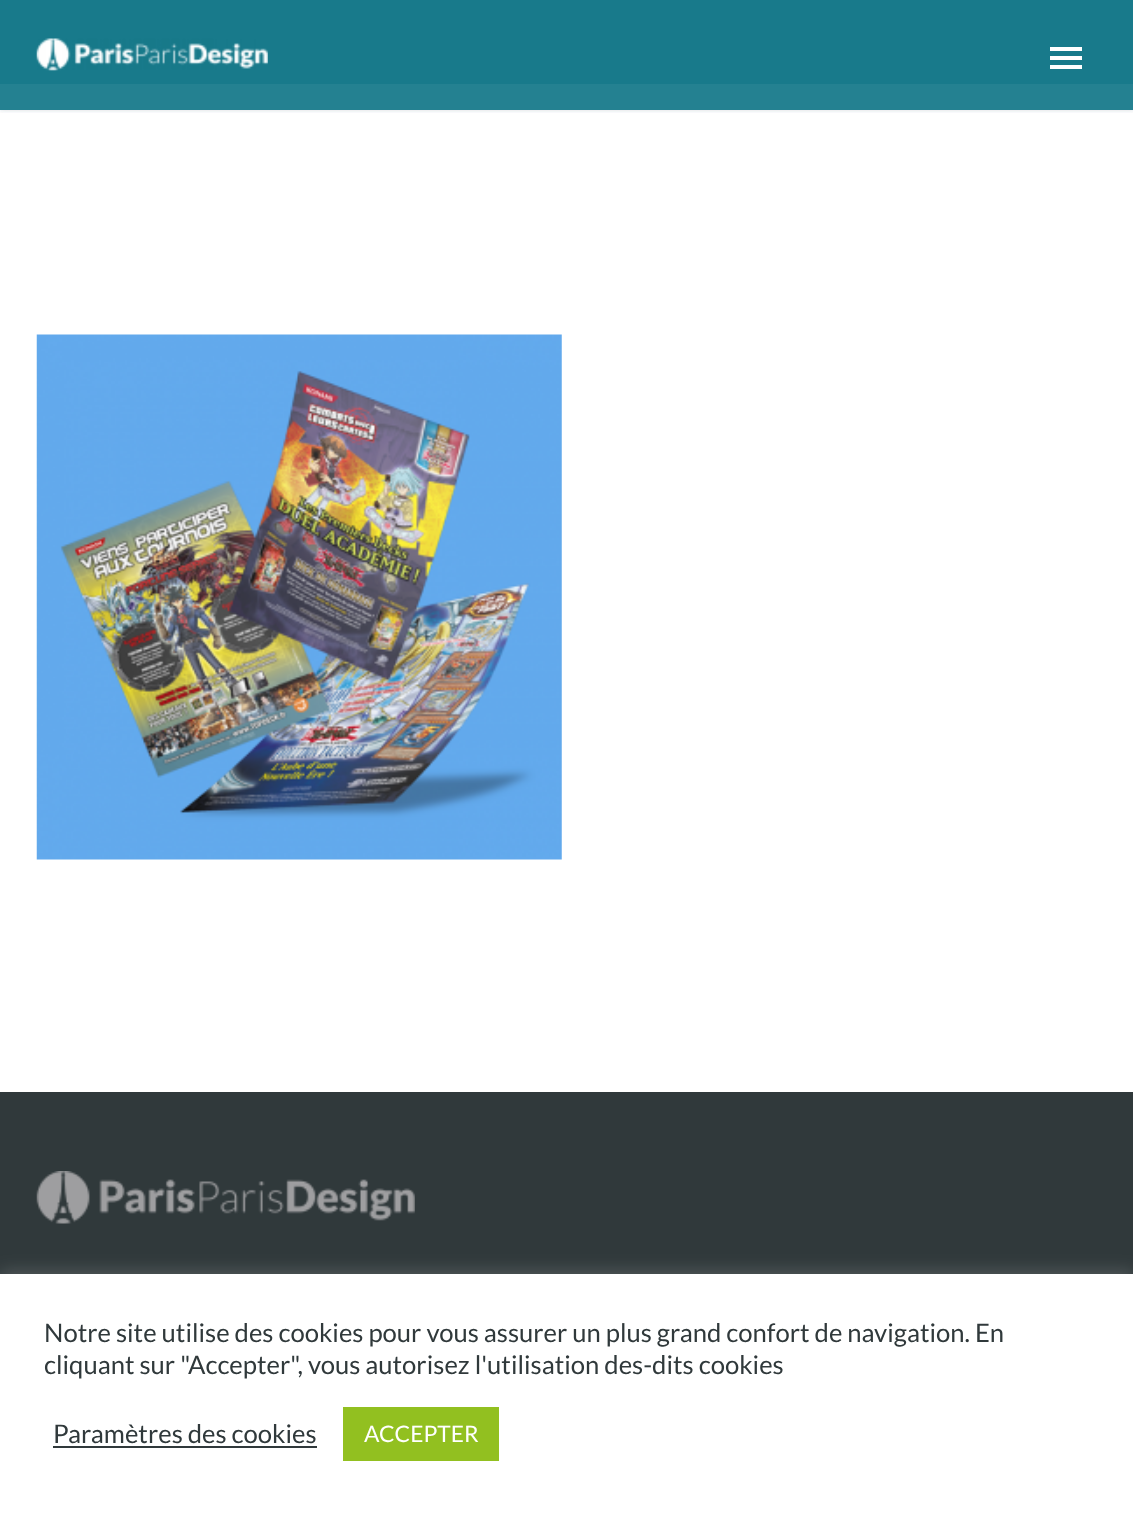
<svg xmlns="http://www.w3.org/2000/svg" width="1133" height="1513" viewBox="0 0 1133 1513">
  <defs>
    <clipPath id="clip1"><rect x="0" y="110" width="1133" height="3"/></clipPath>
    <filter id="blur1" x="-50%" y="-200%" width="200%" height="500%"><feGaussianBlur stdDeviation="2"/></filter>
    <filter id="blur2" x="-50%" y="-200%" width="200%" height="500%"><feGaussianBlur stdDeviation="9"/></filter>
  </defs>
  <rect width="100%" height="100%" fill="#ffffff"/>
  <rect x="0" y="84" width="1133" height="26" fill="#248191"/>
  <rect x="0" y="0" width="1133" height="84" fill="#187a8b"/>
  <g clip-path="url(#clip1)">
    <rect x="0" y="0" width="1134" height="110" fill="#384554" fill-opacity="0.2" filter="url(#blur1)"/>
  </g>
  <image x="36" y="38" width="232" height="33" href="img1.png"/>
  <rect x="1050" y="47" width="32" height="4" fill="#ffffff"/>
  <rect x="1050" y="56" width="32" height="4" fill="#ffffff"/>
  <rect x="1050" y="65" width="32" height="4" fill="#ffffff"/>
  <image x="36" y="334" width="526" height="526" href="img2.png"/>
  <rect x="0" y="1092" width="1133" height="182" fill="#30393b"/>
  <image x="36" y="1171" width="379" height="53" href="img3.png"/>
  <rect x="0" y="1272" width="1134" height="240" fill="#acabab" fill-opacity="0.3" filter="url(#blur2)"/>
  <rect x="0" y="1274" width="1133" height="239" fill="#ffffff"/>
  <text x="44" y="1342" font-family="Lato" font-size="25.65" fill="#30393b">Notre site utilise des cookies pour vous assurer un plus grand confort de navigation. En</text>
  <text x="44" y="1374" font-family="Lato" font-size="25.65" fill="#30393b">cliquant sur "Accepter", vous autorisez l'utilisation des-dits cookies</text>
  <text x="53" y="1443" font-family="Lato" font-size="25.65" fill="#30393b">Paramètres des cookies</text>
  <rect x="53" y="1446" width="264" height="2" fill="#30393b"/>
  <rect x="343" y="1407" width="156" height="54" fill="#92c020"/>
  <text x="364" y="1442" font-family="Lato" font-size="22.75" fill="#ffffff">ACCEPTER</text>
</svg>
